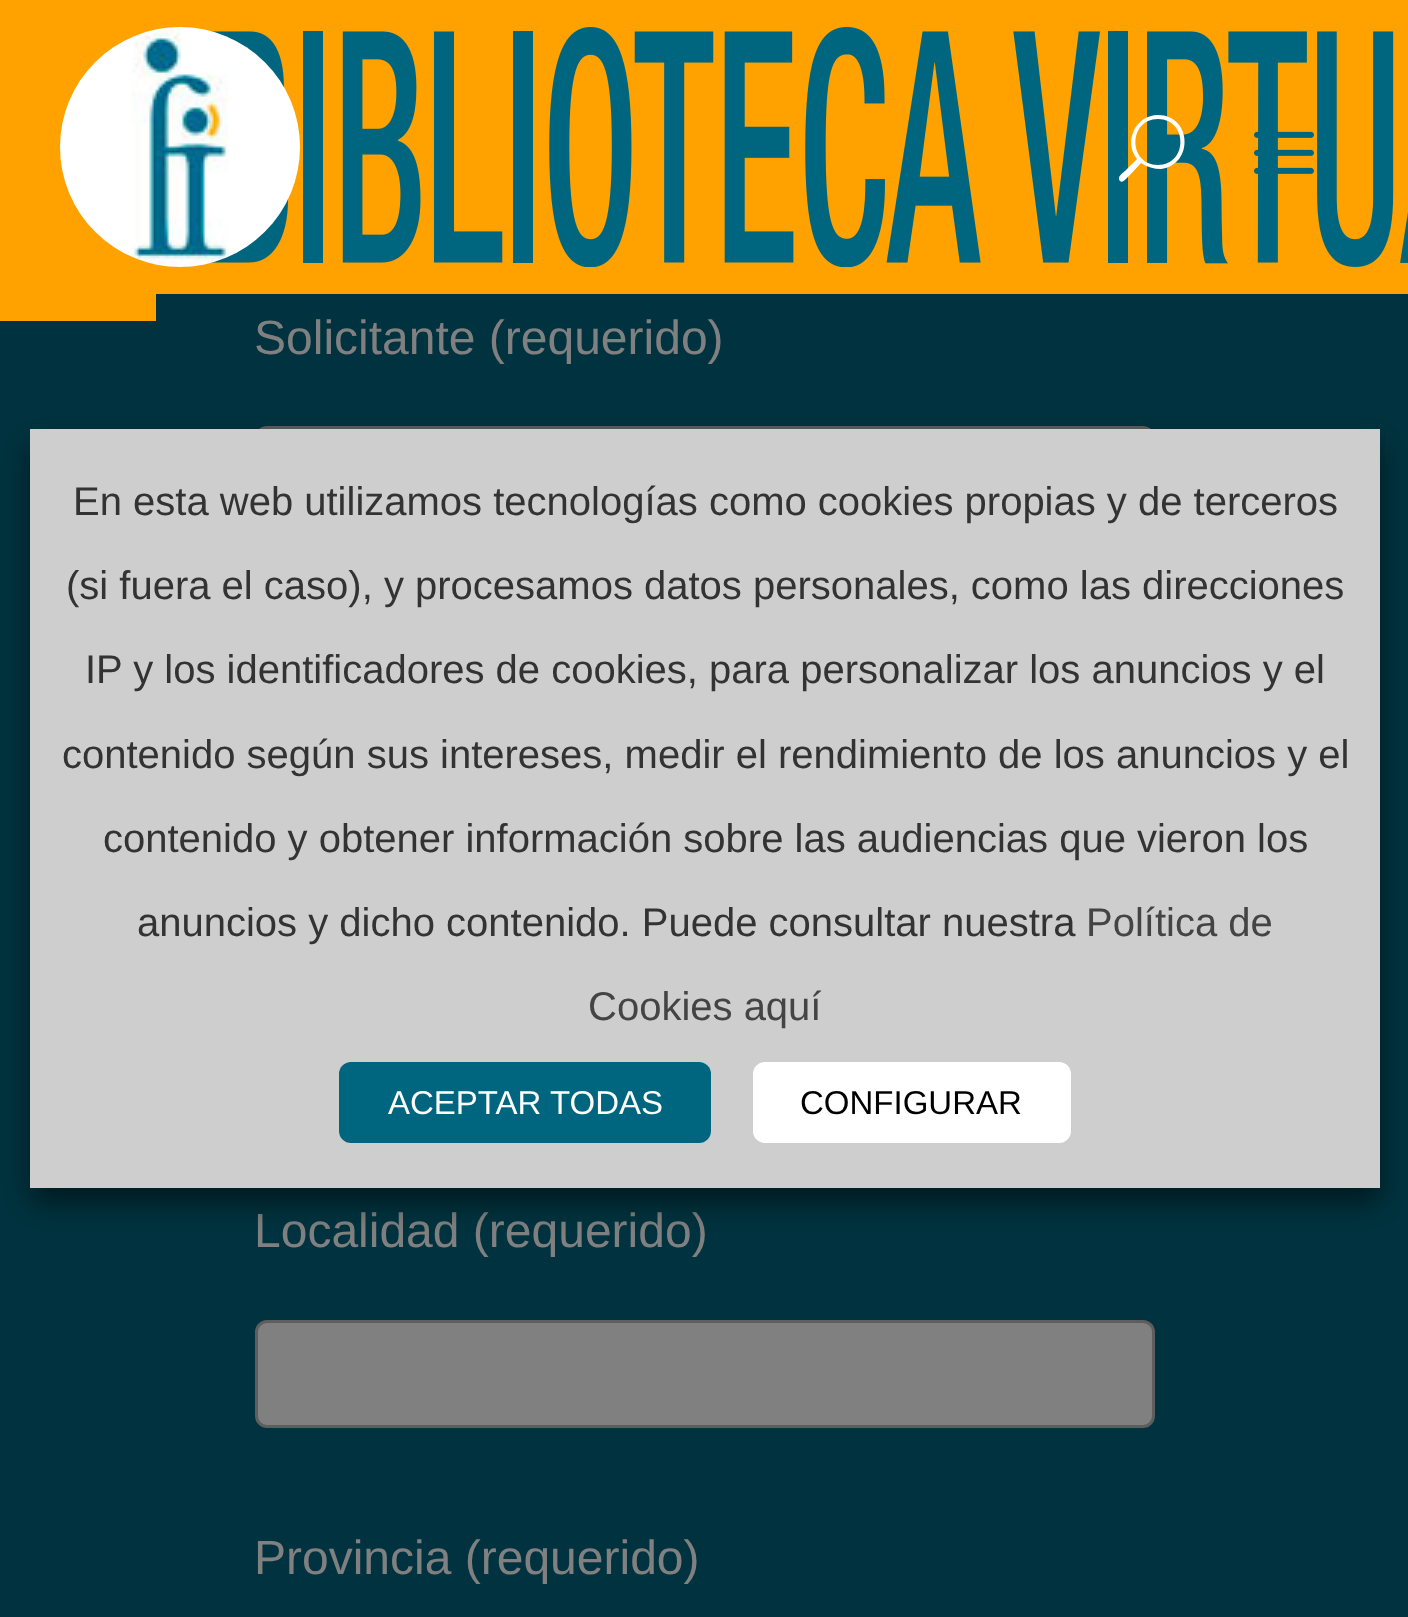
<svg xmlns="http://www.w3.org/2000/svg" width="1408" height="1617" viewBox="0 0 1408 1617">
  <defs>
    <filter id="blur1" x="-50%" y="-200%" width="200%" height="500%"><feGaussianBlur stdDeviation="15"/></filter>
  </defs>
  <rect width="100%" height="100%" fill="#00333f"/>
  <rect x="0" y="294" width="156" height="27" fill="#ffa200"/>
  <rect x="0" y="0" width="1408" height="294" fill="#ffa200"/>
  <image x="210" y="27" width="1198" height="240" href="img1.png"/>
  <image x="60" y="27" width="240" height="240" href="img2.png"/>
  <path d="M1158 115C1136 115 1123 141 1137 159L1125 171C1124 172 1116 177 1120 181C1123 184 1128 176 1130 175L1141 163C1147 167 1154 169 1161 169C1194 165 1192 115 1158 115ZM1158 165C1128 165 1128 119 1158 119C1188 119 1188 165 1158 165Z" fill="#ffffff"/>
  <image x="1254" y="131" width="60" height="43" href="img3.png"/>
  <text x="254" y="354" font-family="Liberation Sans" font-size="48" fill="#808080">Solicitante (requerido)</text>
  <rect x="256.5" y="427.5" width="897" height="105" rx="10.5" fill="none" stroke="#5e5e5e" stroke-width="3"/>
  <text x="254" y="1247" font-family="Liberation Sans" font-size="48" fill="#808080">Localidad (requerido)</text>
  <rect x="256.5" y="1321.5" width="897" height="105" rx="10.5" fill="#808080" stroke="#5e5e5e" stroke-width="3"/>
  <text x="254" y="1574" font-family="Liberation Sans" font-size="48" fill="#808080">Provincia (requerido)</text>
  <rect x="30" y="444" width="1350" height="759" fill="#000000" fill-opacity="0.5" filter="url(#blur1)"/>
  <rect x="30" y="429" width="1350" height="759" fill="#cecece"/>
  <text x="73" y="515" font-family="Liberation Sans" font-size="40" fill="#333333">En esta web utilizamos tecnologías como cookies propias y de terceros</text>
  <text x="66" y="599" font-family="Liberation Sans" font-size="40" fill="#333333">(si fuera el caso), y procesamos datos personales, como las direcciones</text>
  <text x="85" y="683" font-family="Liberation Sans" font-size="40" fill="#333333">IP y los identificadores de cookies, para personalizar los anuncios y el</text>
  <text x="62" y="768" font-family="Liberation Sans" font-size="40" fill="#333333">contenido según sus intereses, medir el rendimiento de los anuncios y el</text>
  <text x="103" y="852" font-family="Liberation Sans" font-size="40" fill="#333333">contenido y obtener información sobre las audiencias que vieron los</text>
  <text x="137" y="936" font-family="Liberation Sans" font-size="40" fill="#333333">anuncios y dicho contenido. Puede consultar nuestra</text>
  <text x="1086" y="936" font-family="Liberation Sans" font-size="40" fill="#444444">Política de</text>
  <text x="588" y="1020" font-family="Liberation Sans" font-size="40" fill="#444444">Cookies aquí</text>
  <rect x="339" y="1062" width="372" height="81" rx="12" fill="#00657e"/>
  <text x="388" y="1114" font-family="Liberation Sans" font-size="33" fill="#ffffff">ACEPTAR TODAS</text>
  <rect x="753" y="1062" width="318" height="81" rx="12" fill="#ffffff"/>
  <text x="800" y="1114" font-family="Liberation Sans" font-size="33" fill="#000000">CONFIGURAR</text>
</svg>
